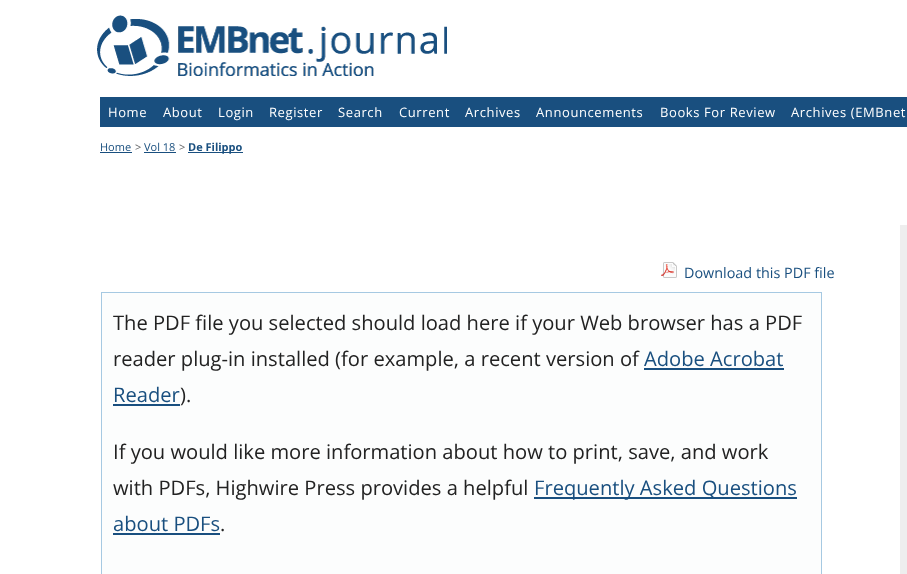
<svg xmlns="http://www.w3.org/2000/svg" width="907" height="574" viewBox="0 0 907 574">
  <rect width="100%" height="100%" fill="#ffffff"/>
  <image x="97" y="15" width="350" height="61" href="img1.png"/>
  <rect x="100" y="97" width="807" height="30" fill="#194f7f"/>
  <text x="108" y="117" font-family="Open Sans" font-size="13" letter-spacing="0.6" fill="#ffffff">Home</text>
  <text x="163" y="117" font-family="Open Sans" font-size="13" letter-spacing="0.6" fill="#ffffff">About</text>
  <text x="218" y="117" font-family="Open Sans" font-size="13" letter-spacing="0.6" fill="#ffffff">Login</text>
  <text x="269" y="117" font-family="Open Sans" font-size="13" letter-spacing="0.6" fill="#ffffff">Register</text>
  <text x="338" y="117" font-family="Open Sans" font-size="13" letter-spacing="0.6" fill="#ffffff">Search</text>
  <text x="399" y="117" font-family="Open Sans" font-size="13" letter-spacing="0.6" fill="#ffffff">Current</text>
  <text x="465" y="117" font-family="Open Sans" font-size="13" letter-spacing="0.6" fill="#ffffff">Archives</text>
  <text x="536" y="117" font-family="Open Sans" font-size="13" letter-spacing="0.6" fill="#ffffff">Announcements</text>
  <text x="660" y="117" font-family="Open Sans" font-size="13" letter-spacing="0.6" fill="#ffffff">Books For Review</text>
  <text x="791" y="117" font-family="Open Sans" font-size="13" letter-spacing="0.6" fill="#ffffff">Archives (EMBnet</text>
  <text x="100" y="151" font-family="Open Sans" font-size="11" fill="#194f7f">Home</text>
  <rect x="100" y="152" width="32" height="1" fill="#194f7f"/>
  <text x="135" y="151" font-family="Open Sans" font-size="11" fill="#636466">&gt;</text>
  <text x="144" y="151" font-family="Open Sans" font-size="11" fill="#194f7f">Vol 18</text>
  <rect x="144" y="152" width="32" height="1" fill="#194f7f"/>
  <text x="179" y="151" font-family="Open Sans" font-size="11" fill="#636466">&gt;</text>
  <rect x="188" y="152" width="55" height="1" fill="#194f7f"/>
  <text x="188" y="151" font-family="Open Sans" font-size="11" font-weight="bold" fill="#194f7f">De Filippo</text>
  <image x="661" y="262" width="16" height="16" href="img2.png"/>
  <text x="684" y="278" font-family="Open Sans" font-size="14.4" fill="#194f7f">Download this PDF file</text>
  <rect x="101.5" y="292.5" width="720" height="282" fill="#fcfdfd" stroke="#a6c9e2"/>
  <text x="113" y="330" font-family="Open Sans" font-size="20.15" fill="#222222">The PDF file you selected should load here if your Web browser has a PDF</text>
  <text x="113" y="366" font-family="Open Sans" font-size="20.15" fill="#222222">reader plug-in installed (for example, a recent version of</text>
  <text x="644" y="366" font-family="Open Sans" font-size="20.15" fill="#194f7f">Adobe Acrobat</text>
  <rect x="644" y="368" width="140" height="2" fill="#194f7f"/>
  <text x="113" y="402" font-family="Open Sans" font-size="20.15" fill="#194f7f">Reader</text>
  <rect x="113" y="404" width="67" height="2" fill="#194f7f"/>
  <text x="180" y="402" font-family="Open Sans" font-size="20.15" fill="#222222">).</text>
  <text x="113" y="459" font-family="Open Sans" font-size="20.15" fill="#222222">If you would like more information about how to print, save, and work</text>
  <text x="113" y="495" font-family="Open Sans" font-size="20.15" fill="#222222">with PDFs, Highwire Press provides a helpful</text>
  <rect x="534" y="497" width="263" height="2" fill="#194f7f"/>
  <text x="534" y="495" font-family="Open Sans" font-size="20.15" fill="#194f7f">Frequently Asked Questions</text>
  <text x="113" y="531" font-family="Open Sans" font-size="20.15" fill="#194f7f">about PDFs</text>
  <rect x="113" y="533" width="107" height="2" fill="#194f7f"/>
  <text x="220" y="531" font-family="Open Sans" font-size="20.15" fill="#222222">.</text>
  <rect x="900" y="225" width="7" height="349" fill="#eeeeee"/>
</svg>
